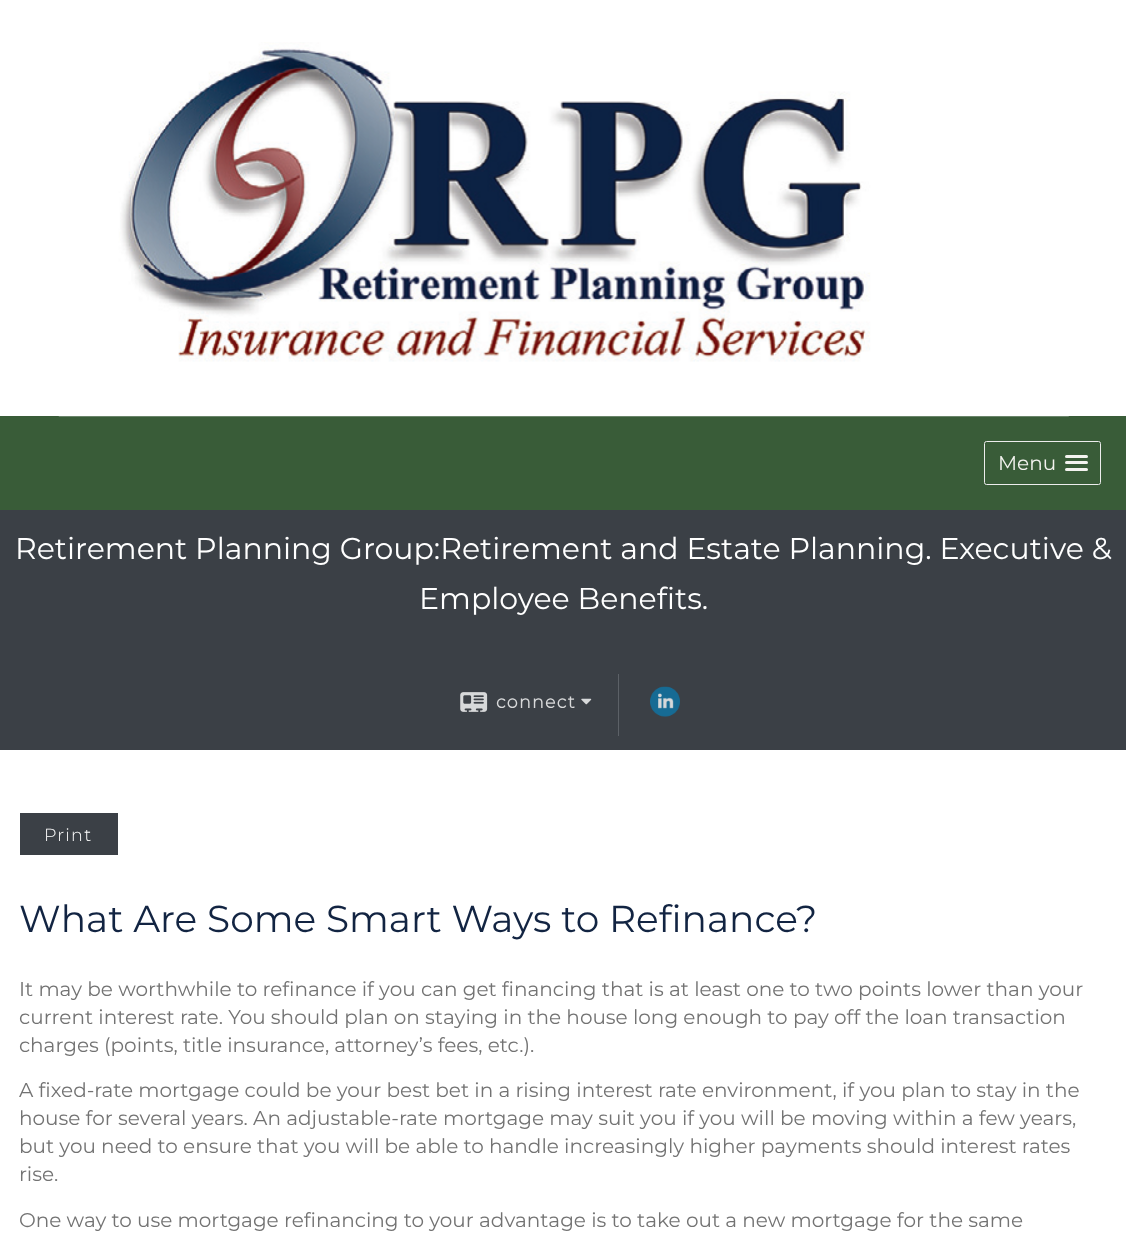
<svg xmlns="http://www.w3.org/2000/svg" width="1126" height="1241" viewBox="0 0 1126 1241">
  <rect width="100%" height="100%" fill="#ffffff"/>
  <rect x="0" y="416" width="1126" height="94" fill="#395c38"/>
  <image x="58" y="42" width="1011" height="375" href="img1.png"/>
  <rect x="984.5" y="441.5" width="116" height="43" rx="2" fill="none" stroke="#ececec"/>
  <text x="998" y="470" font-family="Montserrat" font-size="20" fill="#f3f3ef">Menu</text>
  <rect x="1065" y="455" width="23" height="3" rx="1.5" fill="#f3f3ef"/>
  <rect x="1065" y="461" width="23" height="3" rx="1.5" fill="#f3f3ef"/>
  <rect x="1065" y="468" width="23" height="3" rx="1.5" fill="#f3f3ef"/>
  <rect x="0" y="510" width="1126" height="240" fill="#3b4046"/>
  <text x="15" y="559" font-family="Montserrat" font-size="30" fill="#ffffff">Retirement Planning Group:Retirement and Estate Planning. Executive &amp;</text>
  <text x="419" y="609" font-family="Montserrat" font-size="30" fill="#ffffff">Employee Benefits.</text>
  <image x="460" y="692" width="28" height="20" href="img2.png"/>
  <text x="496" y="708" font-family="Montserrat" font-size="17.5" font-weight="bold" letter-spacing="1.25" fill="#d8d9da">connect</text>
  <image x="581" y="698" width="11" height="7" href="img3.png"/>
  <rect x="618" y="674" width="1" height="62" fill="#5c6167"/>
  <image x="650" y="686" width="30" height="31" href="img4.png"/>
  <rect x="20" y="813" width="98" height="42" fill="#3b4046"/>
  <text x="44" y="841" font-family="Montserrat" font-size="17.5" font-weight="300" letter-spacing="1.25" fill="#ffffff">Print</text>
  <text x="19" y="932" font-family="Montserrat" font-size="37.5" fill="#122442">What Are Some Smart Ways to Refinance?</text>
  <text x="19" y="996" font-family="Montserrat" font-size="20" fill="#737373">It may be worthwhile to refinance if you can get financing that is at least one to two points lower than your</text>
  <text x="19" y="1024" font-family="Montserrat" font-size="20" fill="#737373">current interest rate. You should plan on staying in the house long enough to pay off the loan transaction</text>
  <text x="19" y="1052" font-family="Montserrat" font-size="20" fill="#737373">charges (points, title insurance, attorney’s fees, etc.).</text>
  <text x="19" y="1097" font-family="Montserrat" font-size="20" fill="#737373">A fixed-rate mortgage could be your best bet in a rising interest rate environment, if you plan to stay in the</text>
  <text x="19" y="1125" font-family="Montserrat" font-size="20" fill="#737373">house for several years. An adjustable-rate mortgage may suit you if you will be moving within a few years,</text>
  <text x="19" y="1153" font-family="Montserrat" font-size="20" fill="#737373">but you need to ensure that you will be able to handle increasingly higher payments should interest rates</text>
  <text x="19" y="1181" font-family="Montserrat" font-size="20" fill="#737373">rise.</text>
  <text x="19" y="1227" font-family="Montserrat" font-size="20" fill="#737373">One way to use mortgage refinancing to your advantage is to take out a new mortgage for the same</text>
</svg>
